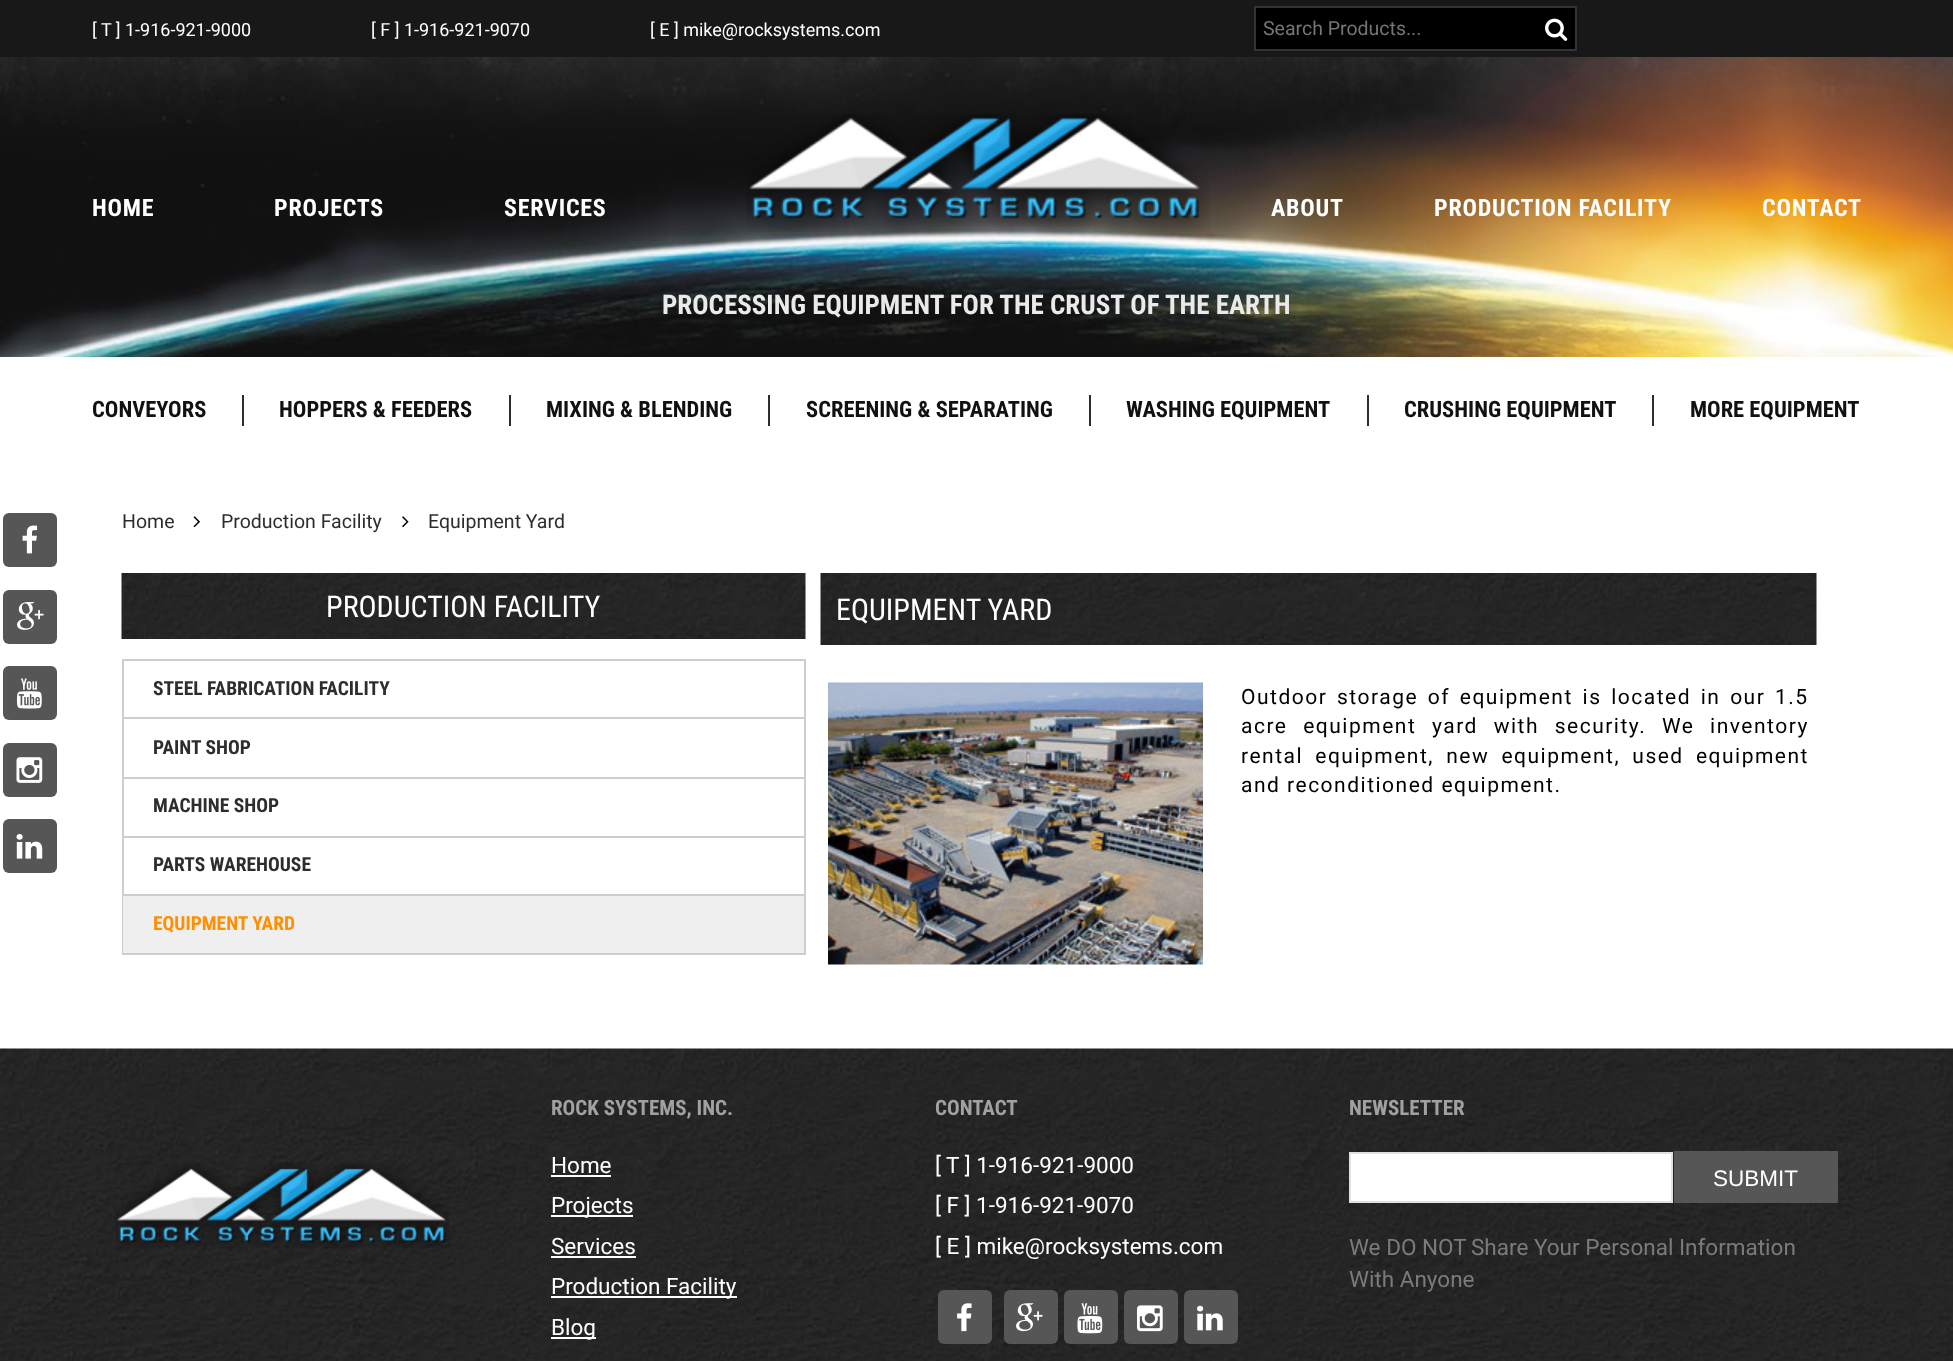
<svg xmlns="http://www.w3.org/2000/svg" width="1953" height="1361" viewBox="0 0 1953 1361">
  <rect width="100%" height="100%" fill="#ffffff"/>
  <rect x="0" y="0" width="1953" height="57" fill="#181818"/>
  <text x="92" y="36" font-family="Roboto" font-size="18" fill="#ffffff">[ T ] 1-916-921-9000</text>
  <text x="371" y="36" font-family="Roboto" font-size="18" fill="#ffffff">[ F ] 1-916-921-9070</text>
  <text x="650" y="36" font-family="Roboto" font-size="18" fill="#ffffff">[ E ] mike@rocksystems.com</text>
  <rect x="1255" y="7" width="321" height="43" fill="#000000" stroke="#333333" stroke-width="2"/>
  <text x="1263" y="35" font-family="Roboto" font-size="19.5" fill="#757575">Search Products...</text>
  <image x="1545" y="18" width="23" height="23" href="img1.png"/>
  <image x="0" y="57" width="1953" height="300" href="img2.png"/>
  <text x="92" y="216" font-family="Roboto Condensed" font-size="24" font-weight="bold" letter-spacing="0.75" fill="#ffffff">HOME</text>
  <text x="274" y="216" font-family="Roboto Condensed" font-size="24" font-weight="bold" letter-spacing="0.75" fill="#ffffff">PROJECTS</text>
  <text x="504" y="216" font-family="Roboto Condensed" font-size="24" font-weight="bold" letter-spacing="0.75" fill="#ffffff">SERVICES</text>
  <image x="746" y="114" width="464" height="118" href="img3.png"/>
  <text x="1271" y="216" font-family="Roboto Condensed" font-size="24" font-weight="bold" letter-spacing="0.75" fill="#ffffff">ABOUT</text>
  <text x="1434" y="216" font-family="Roboto Condensed" font-size="24" font-weight="bold" letter-spacing="0.75" fill="#ffffff">PRODUCTION FACILITY</text>
  <text x="1762" y="216" font-family="Roboto Condensed" font-size="24" font-weight="bold" letter-spacing="0.75" fill="#ffffff">CONTACT</text>
  <text x="662" y="314" font-family="Roboto Condensed" font-size="27" font-weight="bold" fill="#eaeaea">PROCESSING EQUIPMENT FOR THE CRUST OF THE EARTH</text>
  <rect x="242" y="395" width="2" height="31" fill="#2d2d2d"/>
  <text x="92" y="417" font-family="Roboto Condensed" font-size="22.5" font-weight="bold" fill="#111111">CONVEYORS</text>
  <rect x="509" y="395" width="2" height="31" fill="#2d2d2d"/>
  <text x="279" y="417" font-family="Roboto Condensed" font-size="22.5" font-weight="bold" fill="#111111">HOPPERS &amp; FEEDERS</text>
  <rect x="768" y="395" width="2" height="31" fill="#2d2d2d"/>
  <text x="546" y="417" font-family="Roboto Condensed" font-size="22.5" font-weight="bold" fill="#111111">MIXING &amp; BLENDING</text>
  <rect x="1089" y="395" width="2" height="31" fill="#2d2d2d"/>
  <text x="806" y="417" font-family="Roboto Condensed" font-size="22.5" font-weight="bold" fill="#111111">SCREENING &amp; SEPARATING</text>
  <rect x="1367" y="395" width="2" height="31" fill="#2d2d2d"/>
  <text x="1126" y="417" font-family="Roboto Condensed" font-size="22.5" font-weight="bold" fill="#111111">WASHING EQUIPMENT</text>
  <rect x="1652" y="395" width="2" height="31" fill="#2d2d2d"/>
  <text x="1404" y="417" font-family="Roboto Condensed" font-size="22.5" font-weight="bold" fill="#111111">CRUSHING EQUIPMENT</text>
  <text x="1690" y="417" font-family="Roboto Condensed" font-size="22.5" font-weight="bold" fill="#111111">MORE EQUIPMENT</text>
  <text x="122" y="528" font-family="Roboto" font-size="19.5" fill="#2d2d2d">Home</text>
  <image x="193" y="516" width="7" height="12" href="img4.png"/>
  <text x="221" y="528" font-family="Roboto" font-size="19.5" fill="#2d2d2d">Production Facility</text>
  <image x="402" y="516" width="7" height="12" href="img5.png"/>
  <text x="428" y="528" font-family="Roboto" font-size="19.5" fill="#2d2d2d">Equipment Yard</text>
  <image x="121" y="573" width="685" height="66" href="img6.png"/>
  <text x="326" y="617" font-family="Roboto Condensed" font-size="30" fill="#ffffff">PRODUCTION FACILITY</text>
  <rect x="123" y="660" width="682" height="58" fill="none" stroke="#cdcdcd" stroke-width="2"/>
  <text x="153" y="695" font-family="Roboto Condensed" font-size="19.5" font-weight="bold" fill="#2d2d2d">STEEL FABRICATION FACILITY</text>
  <rect x="804" y="719" width="2" height="118" fill="#cdcdcd"/>
  <rect x="122" y="777" width="684" height="2" fill="#cdcdcd"/>
  <rect x="122" y="719" width="2" height="60" fill="#cdcdcd"/>
  <text x="153" y="754" font-family="Roboto Condensed" font-size="19.5" font-weight="bold" fill="#2d2d2d">PAINT SHOP</text>
  <rect x="122" y="836" width="684" height="2" fill="#cdcdcd"/>
  <rect x="122" y="779" width="2" height="58" fill="#cdcdcd"/>
  <text x="153" y="812" font-family="Roboto Condensed" font-size="19.5" font-weight="bold" fill="#2d2d2d">MACHINE SHOP</text>
  <rect x="804" y="837" width="2" height="117" fill="#cdcdcd"/>
  <rect x="122" y="894" width="684" height="2" fill="#cdcdcd"/>
  <rect x="122" y="837" width="2" height="59" fill="#cdcdcd"/>
  <text x="153" y="871" font-family="Roboto Condensed" font-size="19.5" font-weight="bold" fill="#2d2d2d">PARTS WAREHOUSE</text>
  <rect x="122" y="953" width="684" height="2" fill="#cdcdcd"/>
  <rect x="122" y="896" width="2" height="58" fill="#cdcdcd"/>
  <rect x="123" y="896" width="681" height="57" fill="#efefef"/>
  <text x="153" y="930" font-family="Roboto Condensed" font-size="19.5" font-weight="bold" fill="#fe8f01">EQUIPMENT YARD</text>
  <image x="820" y="573" width="997" height="72" href="img7.png"/>
  <text x="836" y="620" font-family="Roboto Condensed" font-size="30" fill="#ffffff">EQUIPMENT YARD</text>
  <image x="828" y="682" width="375" height="283" href="img8.png"/>
  <text x="1241" y="704" word-spacing="3" font-family="Roboto" font-size="21" letter-spacing="1.5" fill="#000000">Outdoor storage of equipment is located in our 1.5</text>
  <text x="1241" y="733" word-spacing="9" font-family="Roboto" font-size="21" letter-spacing="1.5" fill="#000000">acre equipment yard with security. We inventory</text>
  <text x="1241" y="763" word-spacing="5.5" font-family="Roboto" font-size="21" letter-spacing="1.5" fill="#000000">rental equipment, new equipment, used equipment</text>
  <text x="1241" y="792" font-family="Roboto" font-size="21" letter-spacing="1.5" fill="#000000">and reconditioned equipment.</text>
  <image x="0" y="1048" width="1953" height="313" href="img9.png"/>
  <rect x="3" y="513" width="54" height="54" rx="6" fill="#565656"/>
  <image x="22" y="525" width="16" height="29" href="img10.png"/>
  <rect x="3" y="590" width="54" height="54" rx="6" fill="#565656"/>
  <image x="17" y="602" width="27" height="28" href="img11.png"/>
  <rect x="3" y="666" width="54" height="54" rx="6" fill="#565656"/>
  <image x="16" y="678" width="26" height="31" href="img12.png"/>
  <rect x="3" y="743" width="54" height="54" rx="6" fill="#565656"/>
  <image x="16" y="757" width="27" height="26" href="img13.png"/>
  <rect x="3" y="819" width="54" height="54" rx="6" fill="#565656"/>
  <image x="16" y="834" width="27" height="25" href="img14.png"/>
  <image x="115" y="1162" width="335" height="86" href="img15.png"/>
  <text x="551" y="1115" font-family="Roboto Condensed" font-size="21" font-weight="bold" fill="#a1a1a1">ROCK SYSTEMS, INC.</text>
  <text x="551" y="1173" font-family="Roboto" font-size="22.5" fill="#ffffff">Home</text>
  <rect x="551" y="1175" width="60" height="2" fill="#ffffff"/>
  <rect x="551" y="1215" width="82" height="2" fill="#ffffff"/>
  <text x="551" y="1213" font-family="Roboto" font-size="22.5" fill="#ffffff">Projects</text>
  <text x="551" y="1254" font-family="Roboto" font-size="22.5" fill="#ffffff">Services</text>
  <rect x="551" y="1256" width="85" height="2" fill="#ffffff"/>
  <rect x="551" y="1296" width="186" height="2" fill="#ffffff"/>
  <text x="551" y="1294" font-family="Roboto" font-size="22.5" fill="#ffffff">Production Facility</text>
  <rect x="551" y="1337" width="45" height="2" fill="#ffffff"/>
  <text x="551" y="1335" font-family="Roboto" font-size="22.5" fill="#ffffff">Blog</text>
  <text x="935" y="1115" font-family="Roboto Condensed" font-size="21" font-weight="bold" fill="#a1a1a1">CONTACT</text>
  <text x="935" y="1173" font-family="Roboto" font-size="22.5" fill="#ffffff">[ T ] 1-916-921-9000</text>
  <text x="935" y="1213" font-family="Roboto" font-size="22.5" fill="#ffffff">[ F ] 1-916-921-9070</text>
  <text x="935" y="1254" font-family="Roboto" font-size="22.5" fill="#ffffff">[ E ] mike@rocksystems.com</text>
  <rect x="938" y="1290" width="54" height="54" rx="6" fill="#565656"/>
  <image x="957" y="1303" width="15" height="29" href="img16.png"/>
  <rect x="1004" y="1290" width="54" height="54" rx="6" fill="#565656"/>
  <image x="1016" y="1303" width="27" height="29" href="img17.png"/>
  <rect x="1064" y="1290" width="54" height="54" rx="6" fill="#565656"/>
  <image x="1077" y="1303" width="26" height="31" href="img18.png"/>
  <rect x="1124" y="1290" width="54" height="54" rx="6" fill="#565656"/>
  <image x="1137" y="1305" width="26" height="27" href="img19.png"/>
  <rect x="1184" y="1290" width="54" height="54" rx="6" fill="#565656"/>
  <image x="1197" y="1305" width="26" height="26" href="img20.png"/>
  <text x="1349" y="1115" font-family="Roboto Condensed" font-size="21" font-weight="bold" fill="#a1a1a1">NEWSLETTER</text>
  <rect x="1350" y="1153" width="322" height="49" fill="#ffffff" stroke="#e1e1e1" stroke-width="2"/>
  <rect x="1674" y="1151" width="164" height="52" fill="#565656"/>
  <text x="1713" y="1186" font-family="Liberation Sans" font-size="22.5" fill="#ffffff">SUBMIT</text>
  <text x="1349" y="1255" font-family="Roboto" font-size="22.5" fill="#7b7b7b">We DO NOT</text>
  <text x="1471" y="1255" font-family="Roboto" font-size="22.5" fill="#7b7b7b">Share Your Personal Information</text>
  <text x="1349" y="1287" font-family="Roboto" font-size="22.5" fill="#7b7b7b">With Anyone</text>
</svg>
